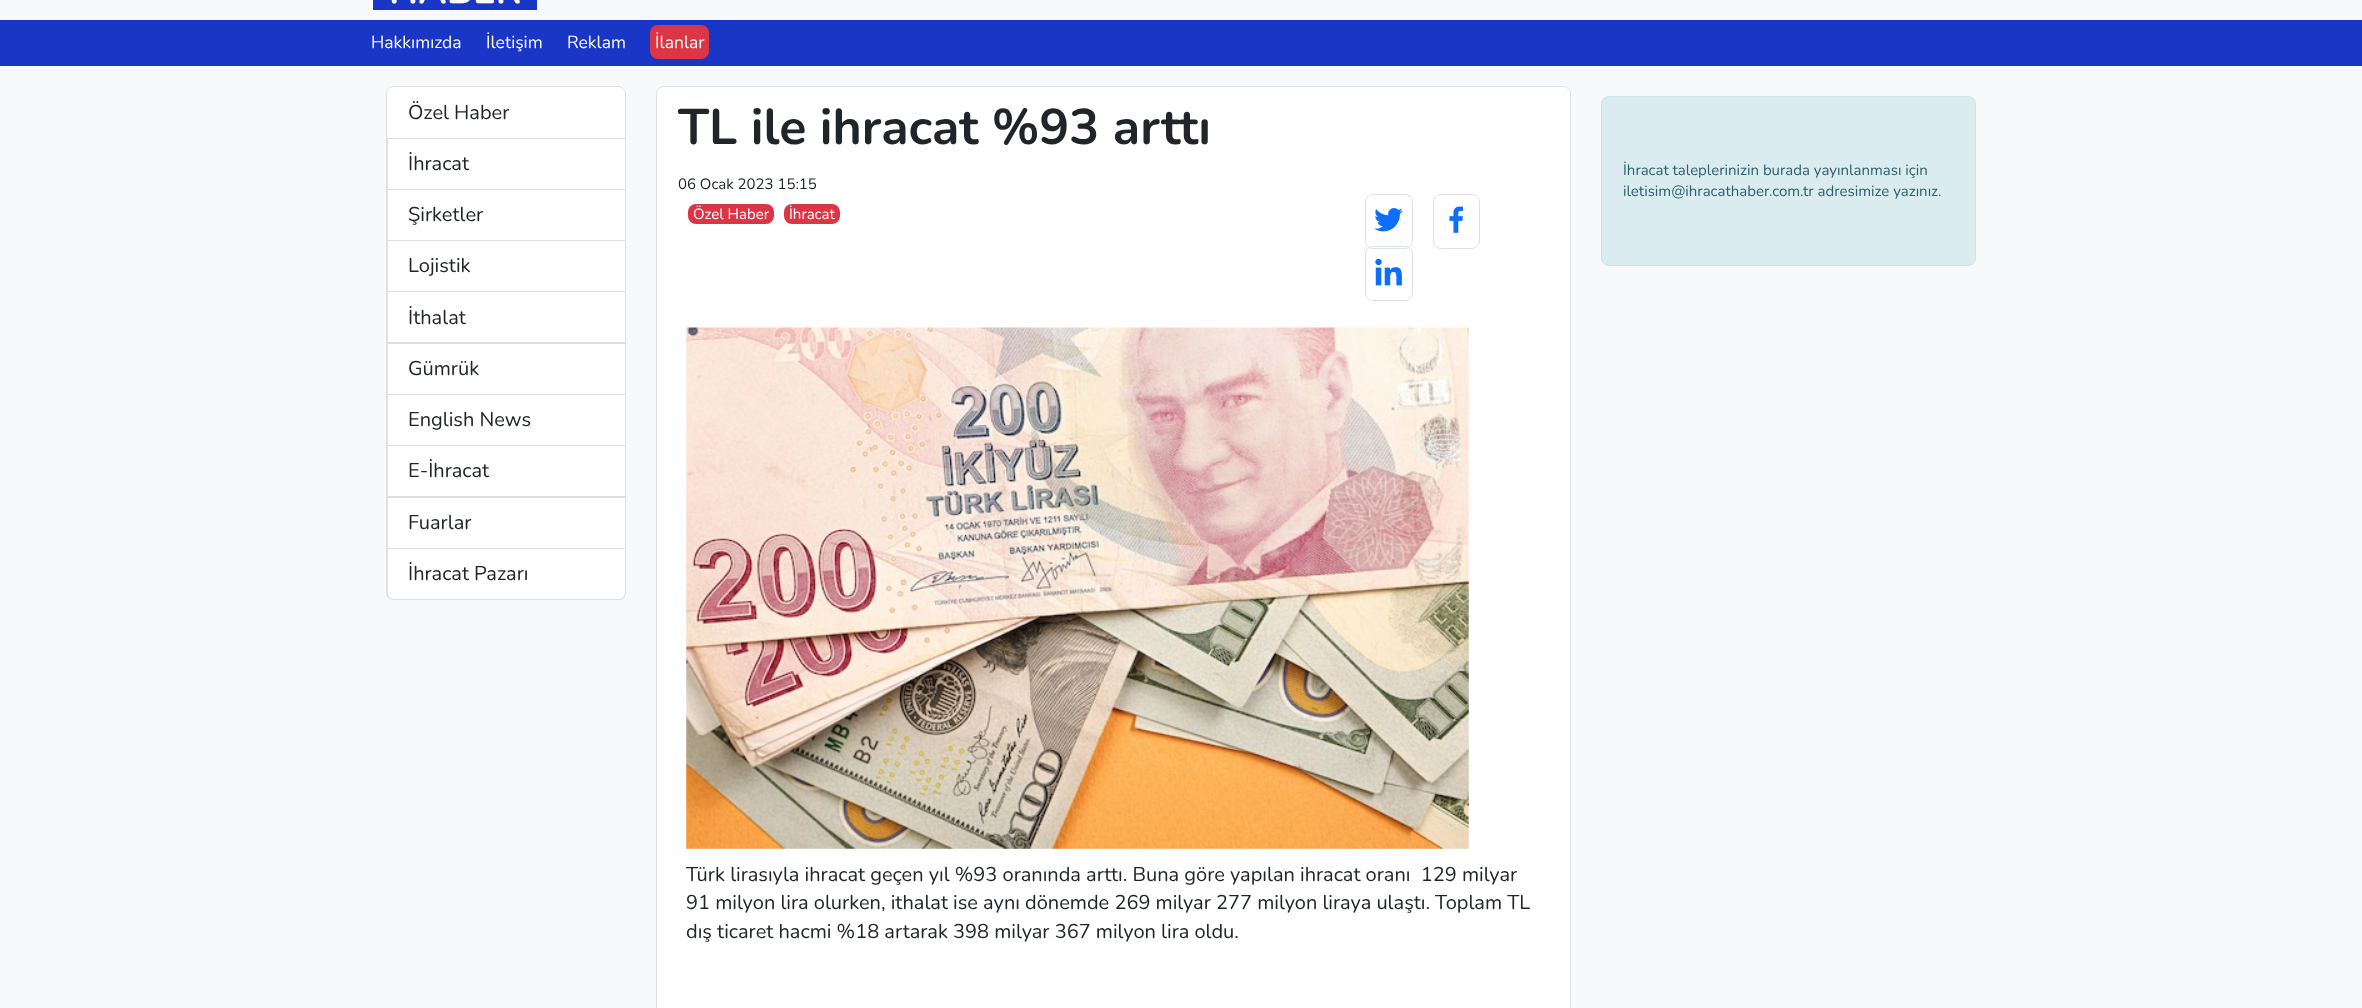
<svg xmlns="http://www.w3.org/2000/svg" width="2362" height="1008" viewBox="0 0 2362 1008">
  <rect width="100%" height="100%" fill="#f8f9fa"/>
  <image x="373" y="0" width="164" height="10" href="img1.png"/>
  <rect x="0" y="20" width="2362" height="46" fill="#1a36c7"/>
  <text x="371" y="48" font-family="Nunito" font-size="17.5" font-weight="200" fill="#f8f9fa">Hakkımızda</text>
  <text x="486" y="48" font-family="Nunito" font-size="17.5" font-weight="200" fill="#f8f9fa">İletişim</text>
  <text x="567" y="48" font-family="Nunito" font-size="17.5" font-weight="200" fill="#f8f9fa">Reklam</text>
  <rect x="650" y="25" width="59" height="34" rx="8" fill="#dc3545"/>
  <text x="655" y="48" font-family="Nunito" font-size="17.5" font-weight="200" fill="#f8f9fa">İlanlar</text>
  <path d="M394 86H618C622.5 86 626 89.5 626 94V139H386V94C386 89.5 389.5 86 394 86Z" fill="#ffffff"/>
  <path d="M394 86.5H618C622 86.5 625.5 90 625.5 94V138.5H386.5V94C386.5 90 390 86.5 394 86.5Z" fill="none" stroke="#000000" stroke-opacity="0.12"/>
  <text x="408" y="119" font-family="Nunito" font-size="20" font-weight="200" fill="#212529">Özel Haber</text>
  <rect x="386" y="139" width="240" height="410" fill="#ffffff"/>
  <path d="M626 139V190L625 189V139Z" fill="#dfdfdf"/>
  <path d="M626 190H386L388 189H625Z" fill="#000000" fill-opacity="0.12"/>
  <path d="M386 190V139H388V189Z" fill="#000000" fill-opacity="0.12"/>
  <text x="408" y="170" font-family="Nunito" font-size="20" font-weight="200" fill="#212529">İhracat</text>
  <path d="M626 190V241L625 240V190Z" fill="#dfdfdf"/>
  <path d="M626 241H386L388 240H625Z" fill="#000000" fill-opacity="0.12"/>
  <path d="M386 241V190H388V240Z" fill="#000000" fill-opacity="0.12"/>
  <text x="408" y="221" font-family="Nunito" font-size="20" font-weight="200" fill="#212529">Şirketler</text>
  <path d="M626 241V292L625 291V241Z" fill="#dfdfdf"/>
  <path d="M626 292H386L388 291H625Z" fill="#000000" fill-opacity="0.12"/>
  <path d="M386 292V241H388V291Z" fill="#000000" fill-opacity="0.12"/>
  <text x="408" y="272" font-family="Nunito" font-size="20" font-weight="200" fill="#212529">Lojistik</text>
  <path d="M626 292V344L625 342V292Z" fill="#dfdfdf"/>
  <path d="M626 344H386L388 342H625Z" fill="#000000" fill-opacity="0.12"/>
  <path d="M386 344V292H388V342Z" fill="#000000" fill-opacity="0.12"/>
  <text x="408" y="324" font-family="Nunito" font-size="20" font-weight="200" fill="#212529">İthalat</text>
  <path d="M626 344V395L625 394V344Z" fill="#dfdfdf"/>
  <path d="M626 395H386L388 394H625Z" fill="#000000" fill-opacity="0.12"/>
  <path d="M386 395V344H388V394Z" fill="#000000" fill-opacity="0.12"/>
  <text x="408" y="375" font-family="Nunito" font-size="20" font-weight="200" fill="#212529">Gümrük</text>
  <path d="M626 395V446L625 445V395Z" fill="#dfdfdf"/>
  <path d="M626 446H386L388 445H625Z" fill="#000000" fill-opacity="0.12"/>
  <path d="M386 446V395H388V445Z" fill="#000000" fill-opacity="0.12"/>
  <text x="408" y="426" font-family="Nunito" font-size="20" font-weight="200" fill="#212529">English News</text>
  <path d="M626 446V498L625 496V446Z" fill="#dfdfdf"/>
  <path d="M626 498H386L388 496H625Z" fill="#000000" fill-opacity="0.12"/>
  <path d="M386 498V446H388V496Z" fill="#000000" fill-opacity="0.12"/>
  <text x="408" y="477" font-family="Nunito" font-size="20" font-weight="200" fill="#212529">E-İhracat</text>
  <path d="M626 498V549L625 548V498Z" fill="#dfdfdf"/>
  <path d="M626 549H386L388 548H625Z" fill="#000000" fill-opacity="0.12"/>
  <path d="M386 549V498H388V548Z" fill="#000000" fill-opacity="0.12"/>
  <text x="408" y="529" font-family="Nunito" font-size="20" font-weight="200" fill="#212529">Fuarlar</text>
  <path d="M386 549H626V592C626 596.5 622.5 600 618 600H394C389.5 600 386 596.5 386 592Z" fill="#ffffff"/>
  <path d="M386 549H626V592C626 597 623 600 619 600H394C390 600 386 597 386 592ZM388 549H625V592C625 596 622 599 619 599H394C390 599 388 596 388 592Z" fill="#000000" fill-opacity="0.12" fill-rule="evenodd"/>
  <text x="408" y="580" font-family="Nunito" font-size="20" font-weight="200" fill="#212529">İhracat Pazarı</text>
  <rect x="656.5" y="86.5" width="914" height="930" rx="7.5" fill="#ffffff" stroke="#dee2e6"/>
  <text x="678" y="144" font-family="'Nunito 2'" font-size="50" font-weight="200" fill="#212529">TL ile ihracat %93 arttı</text>
  <text x="678" y="189" font-family="Nunito" font-size="15" font-weight="200" fill="#212529">06 Ocak 2023 15:15</text>
  <rect x="688" y="204" width="86" height="20" rx="8" fill="#dc3545"/>
  <text x="693" y="219" font-family="Nunito" font-size="15" font-weight="200" fill="#ffffff">Özel Haber</text>
  <rect x="784" y="204" width="56" height="20" rx="8" fill="#dc3545"/>
  <text x="789" y="219" font-family="Nunito" font-size="15" font-weight="200" fill="#ffffff">İhracat</text>
  <rect x="1365.5" y="194.5" width="47" height="54" rx="7.5" fill="none" stroke="#dee2e6"/>
  <image x="1374" y="208" width="29" height="24" href="img2.png"/>
  <rect x="1433.5" y="194.5" width="46" height="54" rx="7.5" fill="none" stroke="#dee2e6"/>
  <image x="1449" y="206" width="15" height="27" href="img3.png"/>
  <rect x="1365.5" y="246.5" width="47" height="54" rx="7.5" fill="none" stroke="#dee2e6"/>
  <image x="1375" y="258" width="27" height="28" href="img4.png"/>
  <image x="686" y="327" width="783" height="522" href="img5.png"/>
  <text x="686" y="881" font-family="Nunito" font-size="20" font-weight="200" fill="#212529" xml:space="preserve">Türk lirasıyla ihracat geçen yıl %93 oranında arttı. Buna göre yapılan ihracat oranı  129 milyar</text>
  <text x="686" y="909" font-family="Nunito" font-size="20" font-weight="200" fill="#212529">91 milyon lira olurken, ithalat ise aynı dönemde 269 milyar 277 milyon liraya ulaştı. Toplam TL</text>
  <text x="686" y="938" font-family="Nunito" font-size="20" font-weight="200" fill="#212529">dış ticaret hacmi %18 artarak 398 milyar 367 milyon lira oldu.</text>
  <rect x="1601.5" y="96.5" width="374" height="169" rx="7.5" fill="#dbecf0" stroke="#c9e3e9"/>
  <text x="1623" y="175" font-family="Nunito" font-size="15" font-weight="200" fill="#2d606d">İhracat taleplerinizin burada yayınlanması için</text>
  <text x="1623" y="196" font-family="Nunito" font-size="15" font-weight="200" fill="#2d606d">iletisim@ihracathaber.com.tr adresimize yazınız.</text>
</svg>
